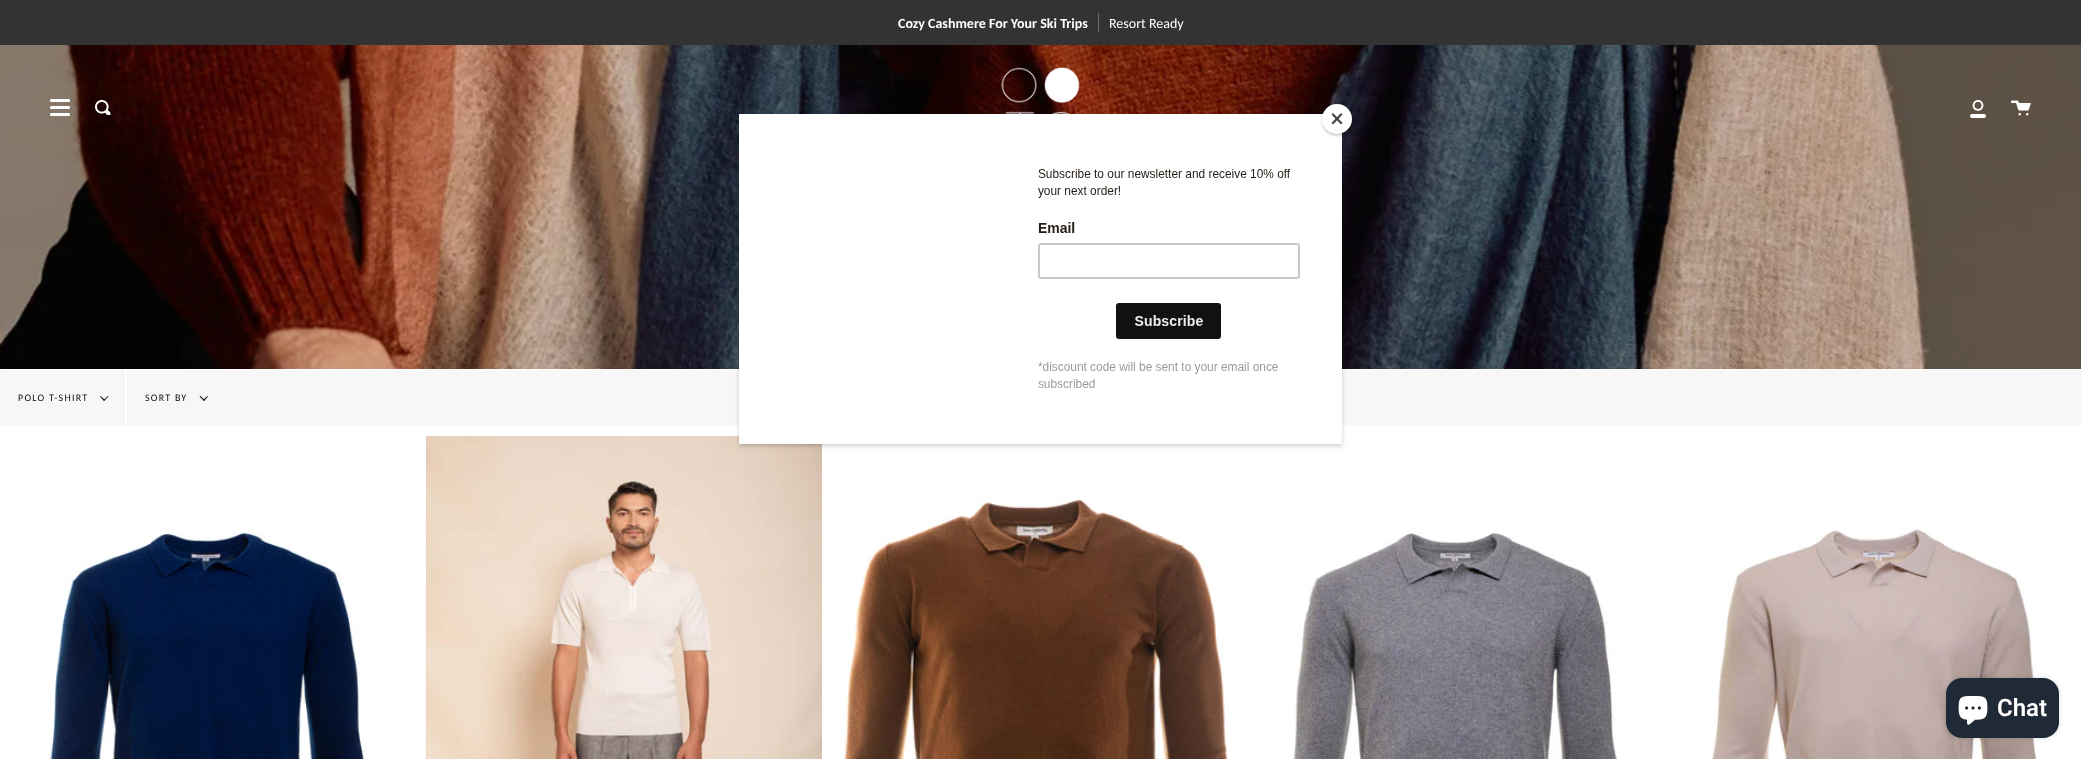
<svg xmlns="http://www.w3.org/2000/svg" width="2081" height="759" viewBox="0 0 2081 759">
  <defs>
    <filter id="blur1" x="-50%" y="-200%" width="200%" height="500%"><feGaussianBlur stdDeviation="2"/></filter>
    <filter id="blur2" x="-50%" y="-200%" width="200%" height="500%"><feGaussianBlur stdDeviation="1"/></filter>
    <filter id="blur3" x="-50%" y="-200%" width="200%" height="500%"><feGaussianBlur stdDeviation="2.5"/></filter>
  </defs>
  <rect width="100%" height="100%" fill="#ffffff"/>
  <rect x="0" y="0" width="2081" height="45" fill="#333333"/>
  <text x="898" y="28" font-family="Carlito" font-size="14" font-weight="bold" fill="#ffffff">Cozy Cashmere For Your Ski Trips</text>
  <rect x="1098" y="13" width="1" height="19" fill="#707070"/>
  <text x="1109" y="28" font-family="Carlito" font-size="14" fill="#ffffff">Resort Ready</text>
  <image x="0" y="45" width="2081" height="324" href="img5.png"/>
  <path d="M51.5 99H67V102H51.5C50.5 102 50 101.5 50 100.5C50 99.5 50.5 99 51.5 99Z" fill="#ffffff"/>
  <path d="M53 99H68.5C69.5 99 70 99.5 70 100.5C70 101.5 69.5 102 68.5 102H53Z" fill="#ffffff"/>
  <path d="M51.5 106H67V109H51.5C50.5 109 50 108.5 50 107.5C50 106.5 50.5 106 51.5 106Z" fill="#ffffff"/>
  <path d="M53 106H68.5C69.5 106 70 106.5 70 107.5C70 108.5 69.5 109 68.5 109H53Z" fill="#ffffff"/>
  <path d="M51.5 113H67V116H51.5C50.5 116 50 115.5 50 114.5C50 113.5 50.5 113 51.5 113Z" fill="#ffffff"/>
  <path d="M53 113H68.5C69.5 113 70 113.5 70 114.5C70 115.5 69.5 116 68.5 116H53Z" fill="#ffffff"/>
  <image x="95" y="100" width="16" height="15" href="img1.png"/>
  <image x="1001" y="67" width="79" height="47" href="img2.png"/>
  <image x="1970" y="100" width="16" height="18" href="img3.png"/>
  <image x="2011" y="100" width="20" height="16" href="img4.png"/>
  <rect x="0" y="370" width="2081" height="56" fill="#f7f7f7"/>
  <rect x="125" y="370" width="2" height="56" fill="#ffffff"/>
  <text x="18" y="401" font-family="Carlito" font-size="10" letter-spacing="1.25" fill="#0e0c0c">POLO T-SHIRT</text>
  <path d="M103.5 400L108 396L108.5 396.5L104 401Z" fill="#0e0c0c"/>
  <path d="M100 396.5L100.5 396L105 400L104 401Z" fill="#0e0c0c"/>
  <text x="145" y="401" font-family="Carlito" font-size="10" letter-spacing="1.25" fill="#0e0c0c">SORT BY</text>
  <path d="M203 400L207.5 396L208 396.5L204 401Z" fill="#0e0c0c"/>
  <path d="M199.5 396.5L200.5 396L204.5 400L204 401Z" fill="#0e0c0c"/>
  <image x="50" y="532" width="316" height="227" href="img6.png"/>
  <image x="426" y="436" width="396" height="323" href="img7.png"/>
  <image x="844" y="496" width="385" height="263" href="img8.png"/>
  <image x="1292" y="533" width="325" height="226" href="img9.png"/>
  <image x="1712" y="529" width="325" height="230" href="img10.png"/>
  <rect x="739" y="116" width="603" height="330" fill="#000000" fill-opacity="0.2" filter="url(#blur1)"/>
  <image x="739" y="114" width="603" height="330" href="img11.png"/>
  <rect x="1322" y="106" width="30" height="30" rx="15" fill="#000000" fill-opacity="0.2" filter="url(#blur2)"/>
  <circle cx="1337" cy="119" r="15" fill="#ffffff"/>
  <path d="M1341 113L1342.5 114.5L1333 124.5L1331.5 123Z" fill="#414141"/>
  <path d="M1331.5 114.5L1333 113L1342.5 123L1341 124.5Z" fill="#414141"/>
  <rect x="1946" y="678" width="113" height="60" rx="16" fill="#000000" fill-opacity="0.15" filter="url(#blur3)"/>
  <rect x="1946" y="678" width="113" height="60" rx="16" fill="#202a36"/>
  <image x="1958" y="696" width="30" height="29" href="img12.png"/>
  <text x="1997" y="716" font-family="Roboto" font-size="24" font-weight="600" fill="#ffffff">Chat</text>
</svg>
